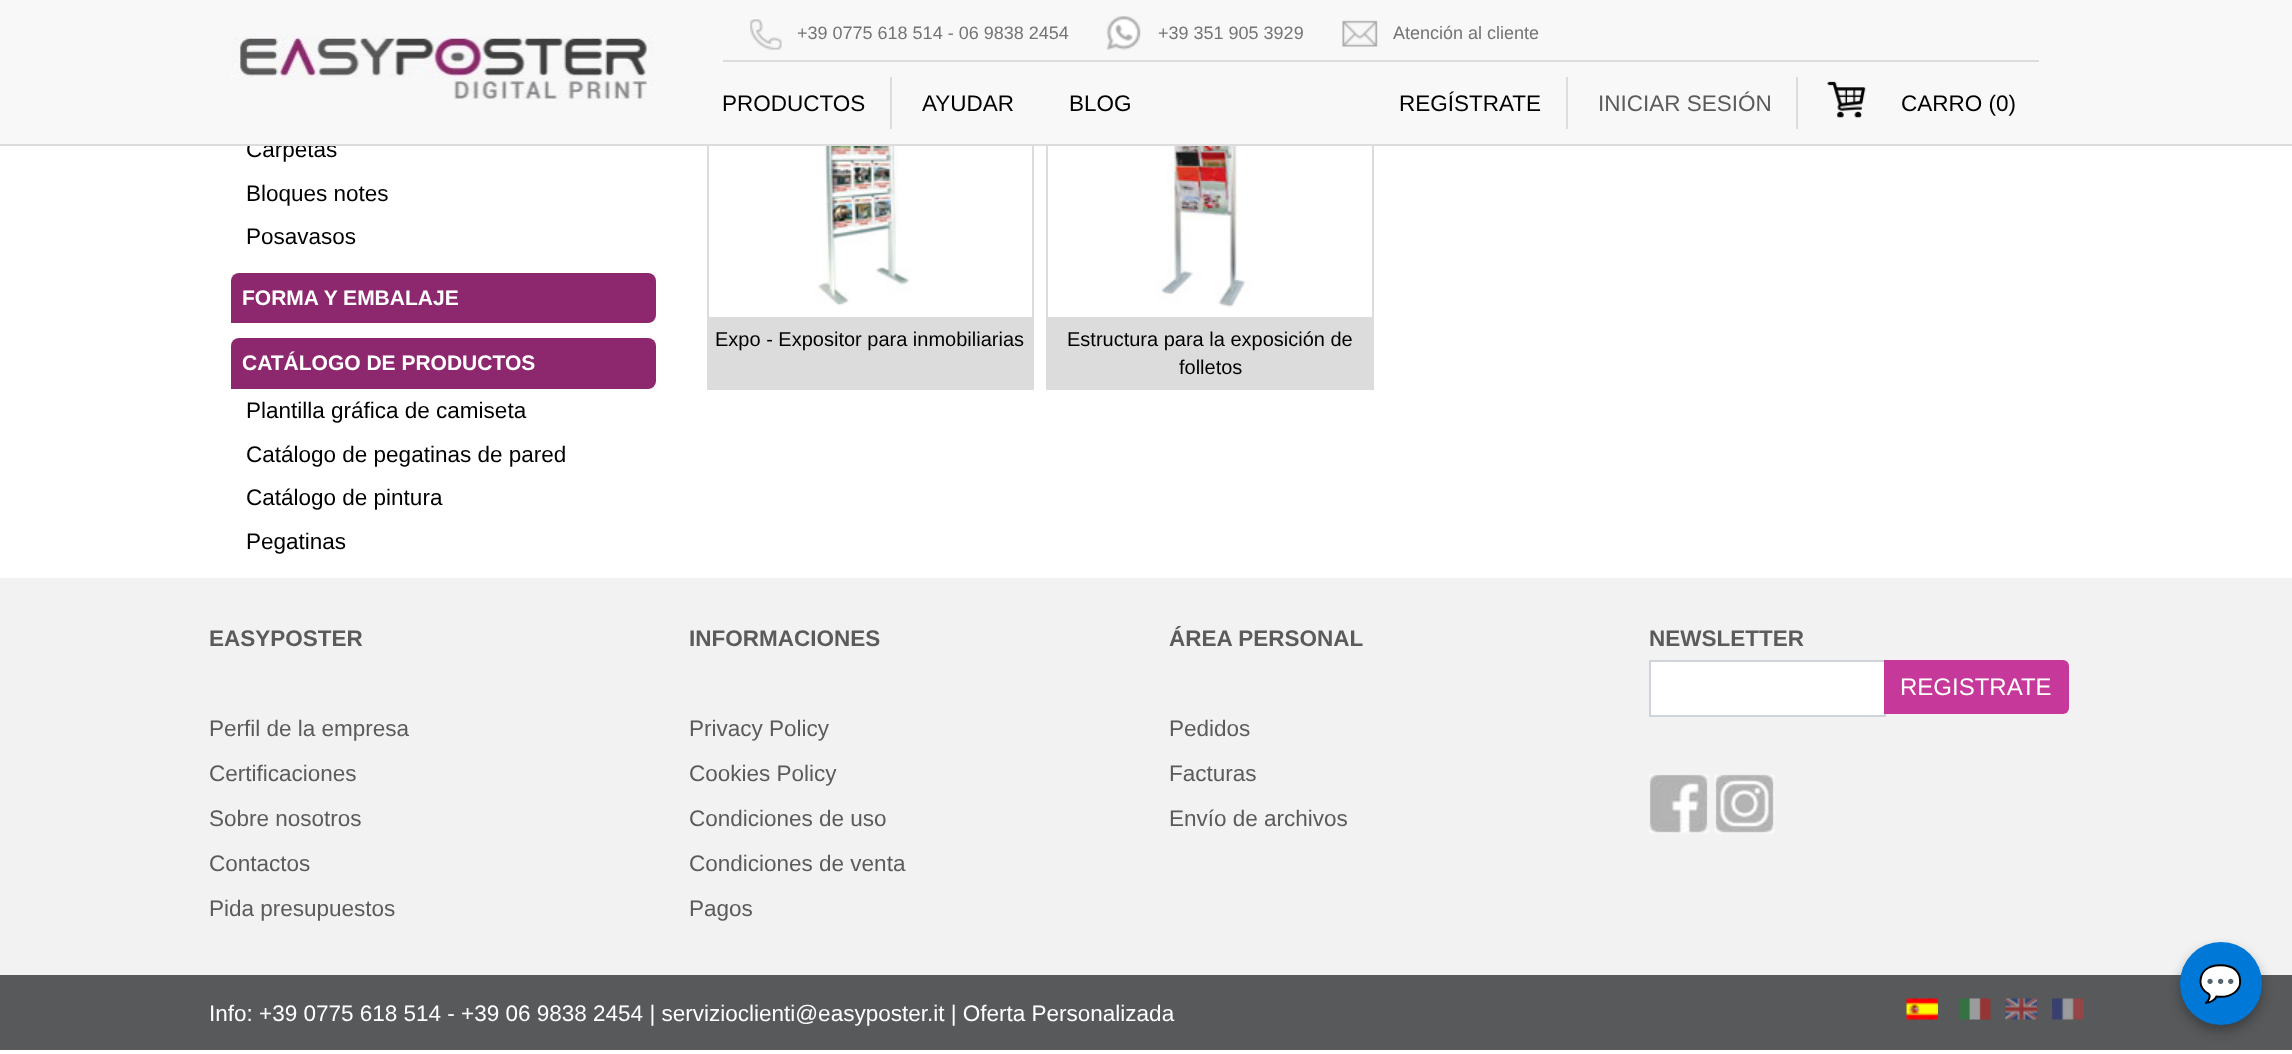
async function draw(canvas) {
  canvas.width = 2292
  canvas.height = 1054
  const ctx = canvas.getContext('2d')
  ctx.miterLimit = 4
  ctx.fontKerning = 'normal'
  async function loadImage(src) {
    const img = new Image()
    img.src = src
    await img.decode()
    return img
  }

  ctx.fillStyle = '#fff'
  ctx.fillRect(0, 0, 2292, 1054)
  ctx.font = '22.5px Liberation Sans'
  ctx.fillStyle = '#000'
  ctx.fillText('Carpetas', 246, 157)
  ctx.strokeStyle = '#dcdcdc'
  ctx.lineWidth = 2
  ctx.strokeRect(708, 69, 325, 320)
  ctx.strokeRect(1047, 69, 326, 320)
  ctx.fillStyle = '#f8f8f8'
  ctx.fillRect(0, 0, 2292, 144)
  ctx.fillStyle = '#dcdcdc'
  ctx.fillRect(0, 144, 2292, 2)
  ctx.drawImage(await loadImage('image0.png'), 231, 36, 422, 64)
  ctx.fillRect(723, 60, 1316, 2)
  ctx.drawImage(await loadImage('image1.png'), 750, 19, 32, 31)
  ctx.font = '18px Liberation Sans'
  ctx.fillStyle = '#747474'
  ctx.fillText('+39 0775 618 514 - 06 9838 2454', 797, 39)
  ctx.drawImage(await loadImage('image2.png'), 1106, 16, 35, 34)
  ctx.fillText('+39 351 905 3929', 1158, 39)
  ctx.drawImage(await loadImage('image3.png'), 1342, 20, 36, 27)
  ctx.fillText('Atención al cliente', 1393, 39)
  ctx.fillStyle = '#dcdcdc'
  ctx.fillRect(890, 77, 2, 52)
  ctx.font = '22.5px Liberation Sans'
  ctx.fillStyle = '#000'
  ctx.fillText('PRODUCTOS', 722, 111)
  ctx.fillText('AYUDAR', 922, 111)
  ctx.fillText('BLOG', 1069, 111)
  ctx.fillStyle = '#dcdcdc'
  ctx.fillRect(1566, 77, 2, 52)
  ctx.fillStyle = '#000'
  ctx.fillText('REGÍSTRATE', 1399, 111)
  ctx.fillStyle = '#dcdcdc'
  ctx.fillRect(1796, 77, 2, 52)
  ctx.fillStyle = '#5b5b5b'
  ctx.fillText('INICIAR SESIÓN', 1598, 111)
  ctx.drawImage(await loadImage('image4.png'), 1827, 81, 39, 37)
  ctx.fillStyle = '#000'
  ctx.fillText('CARRO (0)', 1901, 111)
  ctx.fillText('Bloques notes', 246, 201)
  ctx.fillText('Posavasos', 246, 244)
  ctx.fillStyle = '#8e286e'
  ctx.beginPath()
  ctx.roundRect(231, 273, 425, 50, [8, 8, 8, 0])
  ctx.fill()
  ctx.font = 'bold 21px Liberation Sans'
  ctx.fillStyle = '#fff'
  ctx.fillText('FORMA Y EMBALAJE', 242, 305)
  ctx.fillStyle = '#8e286e'
  ctx.beginPath()
  ctx.roundRect(231, 338, 425, 51, [8, 8, 8, 0])
  ctx.fill()
  ctx.fillStyle = '#fff'
  ctx.fillText('CATÁLOGO DE PRODUCTOS', 242, 370)
  ctx.font = '22.5px Liberation Sans'
  ctx.fillStyle = '#000'
  ctx.fillText('Plantilla gráfica de camiseta', 246, 418)
  ctx.fillText('Catálogo de pegatinas de pared', 246, 462)
  ctx.fillText('Catálogo de pintura', 246, 505)
  ctx.fillText('Pegatinas', 246, 549)
  ctx.drawImage(await loadImage('image5.png'), 815, 146, 95, 160)
  ctx.fillStyle = '#dcdcdc'
  ctx.fillRect(709, 317, 323, 71)
  ctx.font = '20px Liberation Sans'
  ctx.fillStyle = '#000'
  ctx.fillText('Expo - Expositor para inmobiliarias', 715, 346)
  ctx.drawImage(await loadImage('image6.png'), 1157, 146, 94, 162)
  ctx.fillStyle = '#dcdcdc'
  ctx.fillRect(1048, 317, 324, 71)
  ctx.fillStyle = '#000'
  ctx.fillText('Estructura para la exposición de', 1067, 346)
  ctx.fillText('folletos', 1179, 374)
  ctx.fillStyle = '#f2f2f2'
  ctx.fillRect(0, 578, 2292, 397)
  ctx.font = 'bold 22.5px Liberation Sans'
  ctx.fillStyle = '#5b5b5b'
  ctx.fillText('EASYPOSTER', 209, 646)
  ctx.font = '22.5px Liberation Sans'
  ctx.fillText('Perfil de la empresa', 209, 736)
  ctx.fillText('Certificaciones', 209, 781)
  ctx.fillText('Sobre nosotros', 209, 826)
  ctx.fillText('Contactos', 209, 871)
  ctx.fillText('Pida presupuestos', 209, 916)
  ctx.font = 'bold 22.5px Liberation Sans'
  ctx.fillText('INFORMACIONES', 689, 646)
  ctx.font = '22.5px Liberation Sans'
  ctx.fillText('Privacy Policy', 689, 736)
  ctx.fillText('Cookies Policy', 689, 781)
  ctx.fillText('Condiciones de uso', 689, 826)
  ctx.fillText('Condiciones de venta', 689, 871)
  ctx.fillText('Pagos', 689, 916)
  ctx.font = 'bold 22.5px Liberation Sans'
  ctx.fillText('ÁREA PERSONAL', 1169, 646)
  ctx.font = '22.5px Liberation Sans'
  ctx.fillText('Pedidos', 1169, 736)
  ctx.fillText('Facturas', 1169, 781)
  ctx.fillText('Envío de archivos', 1169, 826)
  ctx.font = 'bold 22.5px Liberation Sans'
  ctx.fillText('NEWSLETTER', 1649, 646)
  ctx.fillStyle = '#fff'
  ctx.beginPath()
  ctx.rect(1650, 661, 235, 55)
  ctx.fill()
  ctx.strokeStyle = '#ced4da'
  ctx.stroke()
  ctx.fillStyle = '#c63899'
  ctx.beginPath()
  ctx.roundRect(1884, 660, 185, 54, [0, 6, 6, 0])
  ctx.fill()
  ctx.font = '24px Liberation Sans'
  ctx.fillStyle = '#fff'
  ctx.fillText('REGISTRATE', 1900, 695)
  ctx.drawImage(await loadImage('image7.png'), 1649, 773, 60, 61)
  ctx.drawImage(await loadImage('image8.png'), 1714, 774, 61, 60)
  ctx.fillStyle = '#57595b'
  ctx.fillRect(0, 975, 2292, 75)
  ctx.font = '22.5px Liberation Sans'
  ctx.fillStyle = '#fff'
  ctx.fillText('Info: +39 0775 618 514 - +39 06 9838 2454 | servizioclienti@easyposter.it | Oferta Personalizada', 209, 1021)
  ctx.drawImage(await loadImage('image9.png'), 1906, 998, 32, 22)
  ctx.drawImage(await loadImage('image10.png'), 1959, 998, 32, 22)
  ctx.drawImage(await loadImage('image11.png'), 2005, 998, 32, 22)
  ctx.drawImage(await loadImage('image12.png'), 2052, 998, 32, 22)
  ctx.fillStyle = '#0000004d'
  ctx.filter = 'blur(6px)'
  ctx.beginPath()
  ctx.roundRect(2180, 948, 82, 83, 41)
  ctx.fill()
  ctx.filter = 'none'
  ctx.fillStyle = '#0078d7'
  ctx.beginPath()
  ctx.roundRect(2180, 942, 82, 83, 41)
  ctx.fill()
  ctx.font = '36px Noto Color Emoji'
  ctx.fillStyle = '#fff'
  ctx.fillText('💬', 2198, 996)
}

draw(document.querySelector('canvas'))
